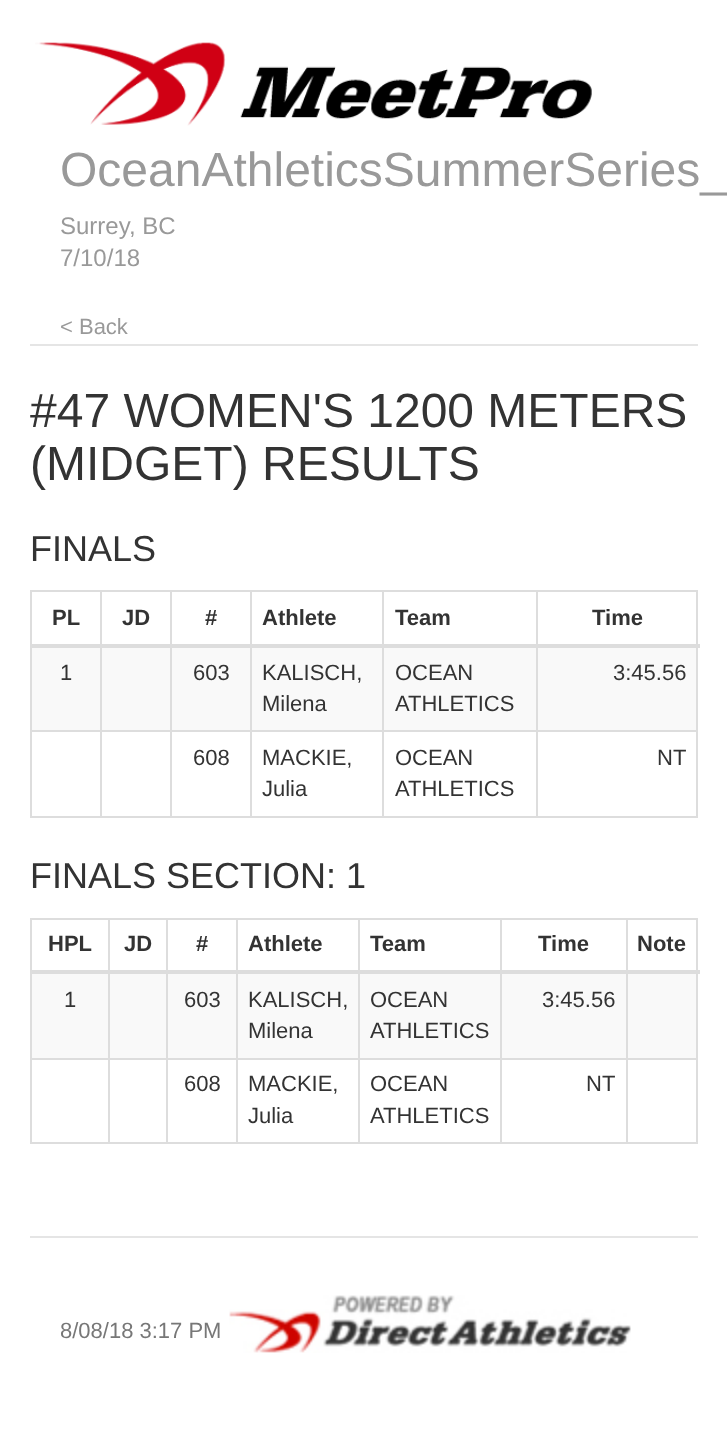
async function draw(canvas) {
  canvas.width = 727
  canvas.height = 1440
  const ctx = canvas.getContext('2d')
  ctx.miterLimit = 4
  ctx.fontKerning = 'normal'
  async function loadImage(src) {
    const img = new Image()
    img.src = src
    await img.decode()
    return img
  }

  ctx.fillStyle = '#fff'
  ctx.fillRect(0, 0, 727, 1440)
  ctx.fillStyle = '#e5e5e5'
  ctx.fillRect(30, 344, 668, 2)
  ctx.drawImage(await loadImage('image0.png'), 35, 42, 557, 84)
  ctx.font = '48px Liberation Sans'
  ctx.fillStyle = '#999'
  ctx.fillText('OceanAthleticsSummerSeries_', 60, 186)
  ctx.font = '24px Liberation Sans'
  ctx.fillText('Surrey, BC', 60, 234)
  ctx.fillText('7/10/18', 60, 266)
  ctx.font = '22px Liberation Sans'
  ctx.fillText('< Back', 60, 334)
  ctx.font = '48px Liberation Sans'
  ctx.fillStyle = '#333'
  ctx.fillText('#47 WOMEN\'S 1200 METERS', 30, 427)
  ctx.fillText('(MIDGET) RESULTS', 30, 480)
  ctx.font = '36px Liberation Sans'
  ctx.fillText('FINALS', 30, 561)
  ctx.fillStyle = '#ddd'
  ctx.fillRect(30, 590, 668, 2)
  ctx.fillRect(696, 590, 2, 228)
  ctx.fillRect(30, 816, 668, 2)
  ctx.fillRect(30, 590, 2, 228)
  ctx.font = 'bold 22px Liberation Sans'
  ctx.fillStyle = '#333'
  ctx.fillText('PL', 52, 625)
  ctx.fillText('JD', 122, 625)
  ctx.fillText('#', 205, 625)
  ctx.fillText('Athlete', 262, 625)
  ctx.fillText('Team', 395, 625)
  ctx.fillStyle = '#ddd'
  ctx.fillRect(536, 730, 162, 2)
  ctx.fillRect(536, 730, 2, 88)
  ctx.fillRect(382, 730, 156, 2)
  ctx.fillRect(382, 730, 2, 88)
  ctx.fillRect(250, 730, 134, 2)
  ctx.fillRect(250, 730, 2, 88)
  ctx.fillRect(170, 730, 82, 2)
  ctx.fillRect(170, 730, 2, 88)
  ctx.fillRect(100, 730, 72, 2)
  ctx.fillRect(100, 730, 2, 88)
  ctx.fillRect(30, 730, 72, 2)
  ctx.fillRect(100, 590, 2, 142)
  ctx.fillRect(170, 590, 2, 142)
  ctx.fillRect(250, 590, 2, 142)
  ctx.fillRect(382, 590, 2, 142)
  ctx.fillRect(536, 590, 2, 142)
  ctx.fillRect(30, 644, 670, 4)
  ctx.fillStyle = '#333'
  ctx.fillText('Time', 592, 625)
  ctx.fillStyle = '#f9f9f9'
  ctx.fillRect(32, 648, 68, 82)
  ctx.font = '22px Liberation Sans'
  ctx.fillStyle = '#333'
  ctx.fillText('1', 60, 680)
  ctx.fillStyle = '#f9f9f9'
  ctx.fillRect(102, 648, 68, 82)
  ctx.fillRect(172, 648, 78, 82)
  ctx.fillStyle = '#333'
  ctx.fillText('603', 193, 680)
  ctx.fillStyle = '#f9f9f9'
  ctx.fillRect(252, 648, 130, 82)
  ctx.fillStyle = '#333'
  ctx.fillText('KALISCH,', 262, 680)
  ctx.fillText('Milena', 262, 711)
  ctx.fillStyle = '#f9f9f9'
  ctx.fillRect(384, 648, 152, 82)
  ctx.fillStyle = '#333'
  ctx.fillText('OCEAN', 395, 680)
  ctx.fillText('ATHLETICS', 395, 711)
  ctx.fillStyle = '#f9f9f9'
  ctx.fillRect(538, 648, 158, 82)
  ctx.fillStyle = '#333'
  ctx.fillText('3:45.56', 613, 680)
  ctx.fillText('608', 193, 765)
  ctx.fillText('MACKIE,', 262, 765)
  ctx.fillText('Julia', 262, 796)
  ctx.fillText('OCEAN', 395, 765)
  ctx.fillText('ATHLETICS', 395, 796)
  ctx.fillText('NT', 657, 765)
  ctx.font = '36px Liberation Sans'
  ctx.fillText('FINALS SECTION: 1', 30, 888)
  ctx.fillStyle = '#ddd'
  ctx.fillRect(30, 918, 668, 2)
  ctx.fillRect(696, 918, 2, 226)
  ctx.fillRect(30, 1142, 668, 2)
  ctx.fillRect(30, 918, 2, 226)
  ctx.font = 'bold 22px Liberation Sans'
  ctx.fillStyle = '#333'
  ctx.fillText('HPL', 48, 951)
  ctx.fillText('JD', 124, 951)
  ctx.fillText('#', 196, 951)
  ctx.fillText('Athlete', 248, 951)
  ctx.fillText('Team', 370, 951)
  ctx.fillText('Time', 538, 951)
  ctx.fillStyle = '#ddd'
  ctx.fillRect(626, 1058, 72, 2)
  ctx.fillRect(626, 1058, 2, 86)
  ctx.fillRect(500, 1058, 128, 2)
  ctx.fillRect(500, 1058, 2, 86)
  ctx.fillRect(358, 1058, 144, 2)
  ctx.fillRect(358, 1058, 2, 86)
  ctx.fillRect(236, 1058, 124, 2)
  ctx.fillRect(236, 1058, 2, 86)
  ctx.fillRect(166, 1058, 72, 2)
  ctx.fillRect(166, 1058, 2, 86)
  ctx.fillRect(108, 1058, 60, 2)
  ctx.fillRect(108, 1058, 2, 86)
  ctx.fillRect(30, 1058, 80, 2)
  ctx.fillRect(108, 918, 2, 142)
  ctx.fillRect(166, 918, 2, 142)
  ctx.fillRect(236, 918, 2, 142)
  ctx.fillRect(358, 918, 2, 142)
  ctx.fillRect(500, 918, 2, 142)
  ctx.fillRect(626, 918, 2, 142)
  ctx.fillRect(30, 970, 670, 4)
  ctx.fillStyle = '#333'
  ctx.fillText('Note', 637, 951)
  ctx.fillStyle = '#f9f9f9'
  ctx.fillRect(32, 974, 76, 84)
  ctx.font = '22px Liberation Sans'
  ctx.fillStyle = '#333'
  ctx.fillText('1', 64, 1007)
  ctx.fillStyle = '#f9f9f9'
  ctx.fillRect(110, 974, 56, 84)
  ctx.fillRect(168, 974, 68, 84)
  ctx.fillStyle = '#333'
  ctx.fillText('603', 184, 1007)
  ctx.fillStyle = '#f9f9f9'
  ctx.fillRect(238, 974, 120, 84)
  ctx.fillStyle = '#333'
  ctx.fillText('KALISCH,', 248, 1007)
  ctx.fillText('Milena', 248, 1038)
  ctx.fillStyle = '#f9f9f9'
  ctx.fillRect(360, 974, 140, 84)
  ctx.fillStyle = '#333'
  ctx.fillText('OCEAN', 370, 1007)
  ctx.fillText('ATHLETICS', 370, 1038)
  ctx.fillStyle = '#f9f9f9'
  ctx.fillRect(502, 974, 124, 84)
  ctx.fillStyle = '#333'
  ctx.fillText('3:45.56', 542, 1007)
  ctx.fillStyle = '#f9f9f9'
  ctx.fillRect(628, 974, 68, 84)
  ctx.fillStyle = '#333'
  ctx.fillText('608', 184, 1091)
  ctx.fillText('MACKIE,', 248, 1091)
  ctx.fillText('Julia', 248, 1123)
  ctx.fillText('OCEAN', 370, 1091)
  ctx.fillText('ATHLETICS', 370, 1123)
  ctx.fillText('NT', 586, 1091)
  ctx.fillStyle = '#e5e5e5'
  ctx.fillRect(30, 1236, 668, 2)
  ctx.fillStyle = '#777'
  ctx.fillText('8/08/18 3:17 PM', 60, 1338)
  ctx.drawImage(await loadImage('image1.png'), 229, 1295, 402, 58)
}

draw(document.querySelector('canvas'))
